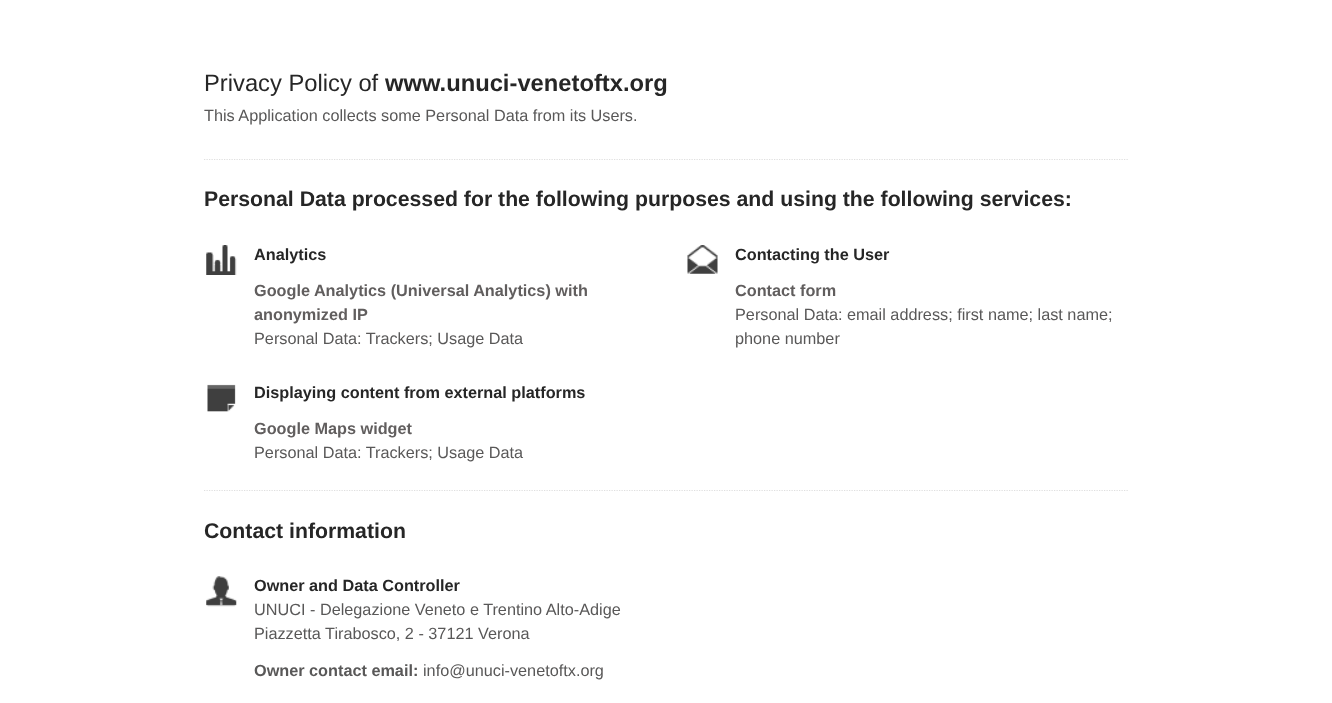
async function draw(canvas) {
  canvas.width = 1332
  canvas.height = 703
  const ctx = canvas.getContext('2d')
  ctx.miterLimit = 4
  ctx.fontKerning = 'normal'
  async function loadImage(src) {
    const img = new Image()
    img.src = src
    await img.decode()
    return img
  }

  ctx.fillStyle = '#fff'
  ctx.fillRect(0, 0, 1332, 703)
  ctx.beginPath()
  ctx.moveTo(204, 159.5)
  ctx.lineTo(1129, 159.5)
  ctx.strokeStyle = '#dfdfdf'
  ctx.lineWidth = 1.2
  ctx.setLineDash([1.25, 1.25])
  ctx.stroke()
  ctx.font = '23.75px Liberation Sans'
  ctx.fillStyle = '#262626'
  ctx.fillText('Privacy Policy of', 204, 91)
  ctx.font = 'bold 23.75px Liberation Sans'
  ctx.fillText('www.unuci-venetoftx.org', 385, 91)
  ctx.font = '16.25px Liberation Sans'
  ctx.fillStyle = '#595858'
  ctx.fillText('This Application collects some Personal Data from its Users.', 204, 121)
  ctx.font = 'bold 21.25px Liberation Sans'
  ctx.fillStyle = '#262626'
  ctx.fillText('Personal Data processed for the following purposes and using the following services:', 204, 206)
  ctx.beginPath()
  ctx.moveTo(204, 490.5)
  ctx.lineTo(1129, 490.5)
  ctx.stroke()
  ctx.drawImage(await loadImage('image0.png'), 206, 245, 31, 30)
  ctx.font = 'bold 16.25px Liberation Sans'
  ctx.fillText('Analytics', 254, 260)
  ctx.fillStyle = '#615e5e'
  ctx.fillText('Google Analytics (Universal Analytics) with', 254, 296)
  ctx.fillText('anonymized IP', 254, 320)
  ctx.font = '16.25px Liberation Sans'
  ctx.fillStyle = '#595858'
  ctx.fillText('Personal Data: Trackers; Usage Data', 254, 344)
  ctx.drawImage(await loadImage('image1.png'), 687, 245, 31, 29)
  ctx.font = 'bold 16.25px Liberation Sans'
  ctx.fillStyle = '#262626'
  ctx.fillText('Contacting the User', 735, 260)
  ctx.fillStyle = '#615e5e'
  ctx.fillText('Contact form', 735, 296)
  ctx.font = '16.25px Liberation Sans'
  ctx.fillStyle = '#595858'
  ctx.fillText('Personal Data: email address; first name; last name;', 735, 320)
  ctx.fillText('phone number', 735, 344)
  ctx.drawImage(await loadImage('image2.png'), 207, 384, 29, 28)
  ctx.font = 'bold 16.25px Liberation Sans'
  ctx.fillStyle = '#262626'
  ctx.fillText('Displaying content from external platforms', 254, 398)
  ctx.fillStyle = '#615e5e'
  ctx.fillText('Google Maps widget', 254, 434)
  ctx.font = '16.25px Liberation Sans'
  ctx.fillStyle = '#595858'
  ctx.fillText('Personal Data: Trackers; Usage Data', 254, 458)
  ctx.font = 'bold 21.25px Liberation Sans'
  ctx.fillStyle = '#262626'
  ctx.fillText('Contact information', 204, 538)
  ctx.drawImage(await loadImage('image3.png'), 206, 576, 31, 31)
  ctx.font = 'bold 16.25px Liberation Sans'
  ctx.fillText('Owner and Data Controller', 254, 591)
  ctx.font = '16.25px Liberation Sans'
  ctx.fillStyle = '#595858'
  ctx.fillText('UNUCI - Delegazione Veneto e Trentino Alto-Adige', 254, 615)
  ctx.fillText('Piazzetta Tirabosco, 2 - 37121 Verona', 254, 639)
  ctx.font = 'bold 16.25px Liberation Sans'
  ctx.fillText('Owner contact email:', 254, 676)
  ctx.font = '16.25px Liberation Sans'
  ctx.fillText('info@unuci-venetoftx.org', 423, 676)
}

draw(document.querySelector('canvas'))
